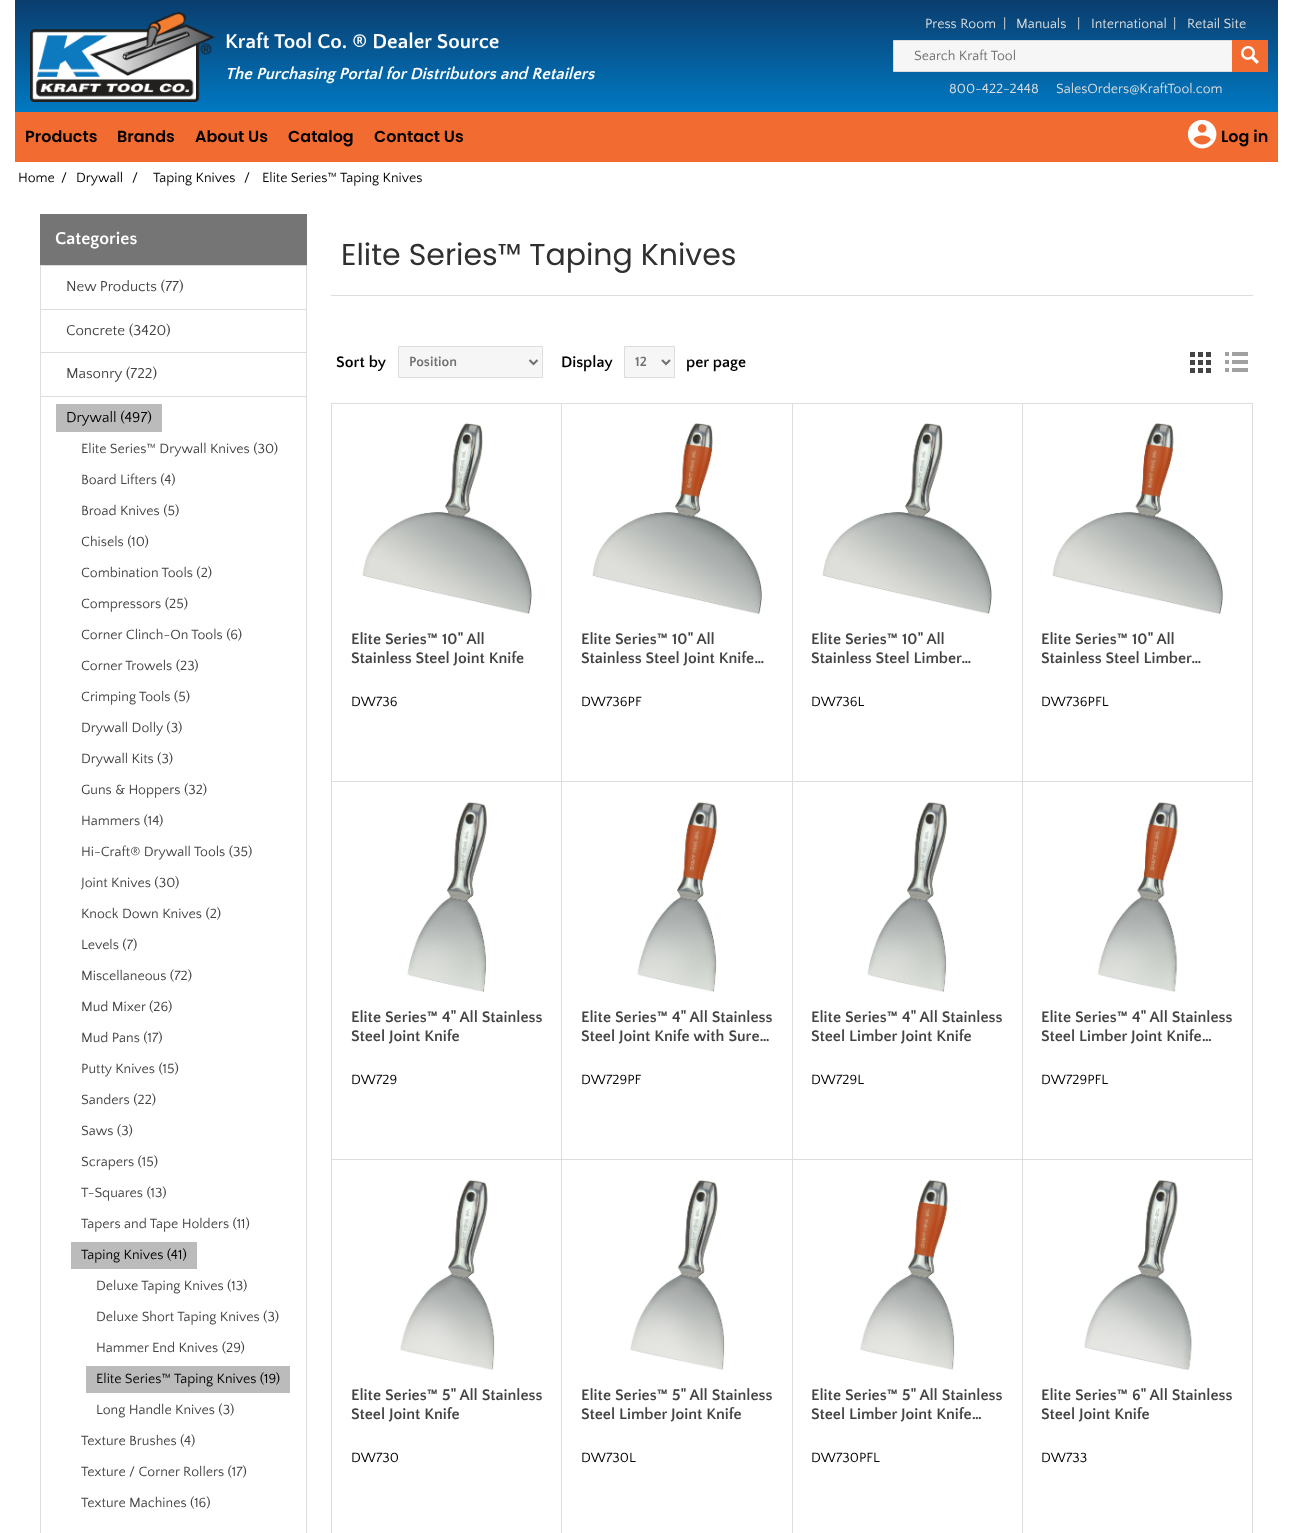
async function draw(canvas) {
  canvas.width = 1293
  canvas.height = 1533
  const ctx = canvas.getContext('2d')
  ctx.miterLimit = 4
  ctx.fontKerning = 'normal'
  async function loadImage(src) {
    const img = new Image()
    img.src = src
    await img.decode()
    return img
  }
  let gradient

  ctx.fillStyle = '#fff'
  ctx.fillRect(0, 0, 1293, 1533)
  gradient = ctx.createLinearGradient(647, 0, 647, 112)
  gradient.addColorStop(0, '#0a3d6e')
  gradient.addColorStop(1, '#0079c2')
  ctx.fillStyle = gradient
  ctx.fillRect(15, 0, 1263, 112)
  ctx.drawImage(await loadImage('image0.png'), 30, 12, 185, 90)
  ctx.font = 'bold 21px Quattrocento Sans'
  ctx.fillStyle = '#fff'
  ctx.fillText('Kraft Tool Co. ® Dealer Source', 225, 48)
  ctx.font = 'italic bold 16.8px Quattrocento Sans'
  ctx.fillText('The Purchasing Portal for Distributors and Retailers', 225, 79)
  ctx.font = '14px Quattrocento Sans'
  ctx.fillStyle = '#ddd'
  ctx.fillText('Press Room', 925, 28)
  ctx.fillText('|', 1003, 28)
  ctx.fillText('Manuals', 1016, 28)
  ctx.fillText('|', 1077, 28)
  ctx.fillText('International', 1091, 28)
  ctx.fillText('|', 1173, 28)
  ctx.fillText('Retail Site', 1187, 28)
  ctx.fillStyle = '#f6f6f6'
  ctx.beginPath()
  ctx.rect(893.5, 40.5, 339, 31)
  ctx.fill()
  ctx.strokeStyle = '#ddd'
  ctx.stroke()
  ctx.fillStyle = '#707070'
  ctx.fillText('Search Kraft Tool', 914, 60)
  ctx.fillStyle = '#f26b31'
  ctx.fillRect(1232, 40, 36, 32)
  ctx.drawImage(await loadImage('image1.png'), 1241, 46, 18, 18)
  ctx.fillStyle = '#ddd'
  ctx.fillText('800-422-2448', 949, 93)
  ctx.fillText('SalesOrders@KraftTool.com', 1056, 93)
  ctx.fillStyle = '#f26b31'
  ctx.fillRect(15, 112, 1263, 50)
  ctx.font = '600 16px Poppins'
  ctx.fillStyle = '#000'
  ctx.fillText('Products', 25, 142)
  ctx.fillText('Brands', 117, 142)
  ctx.fillText('About Us', 195, 142)
  ctx.fillText('Catalog', 288, 142)
  ctx.fillText('Contact Us', 374, 142)
  ctx.drawImage(await loadImage('image2.png'), 1187, 119, 30, 30)
  ctx.fillText('Log in', 1221, 142)
  ctx.font = '14px Quattrocento Sans'
  ctx.fillText('Home', 18, 182)
  ctx.fillText('/', 61, 182)
  ctx.fillText('Drywall', 76, 182)
  ctx.fillText('/', 132, 182)
  ctx.fillText('Taping Knives', 153, 182)
  ctx.fillText('/', 244, 182)
  ctx.fillText('Elite Series™ Taping Knives', 262, 182)
  ctx.fillStyle = '#757575'
  ctx.fillRect(40, 214, 267, 51)
  ctx.fillStyle = '#ddd'
  ctx.fillRect(40, 265, 267, 1)
  ctx.font = 'bold 18px Quattrocento Sans'
  ctx.fillStyle = '#fff'
  ctx.fillText('Categories', 55, 244)
  ctx.fillStyle = '#ddd'
  ctx.fillRect(306, 266, 1, 1267)
  ctx.fillRect(40, 266, 1, 1267)
  ctx.fillRect(41, 309, 265, 1)
  ctx.font = '15px Quattrocento Sans'
  ctx.fillStyle = '#444'
  ctx.fillText('New Products (77)', 66, 291)
  ctx.fillStyle = '#ddd'
  ctx.fillRect(41, 352, 265, 1)
  ctx.fillStyle = '#444'
  ctx.fillText('Concrete (3420)', 66, 335)
  ctx.fillStyle = '#ddd'
  ctx.fillRect(41, 396, 265, 1)
  ctx.fillStyle = '#444'
  ctx.fillText('Masonry (722)', 66, 378)
  ctx.fillStyle = '#bbb'
  ctx.fillRect(56, 404, 106, 28)
  ctx.fillStyle = '#000'
  ctx.fillText('Drywall (497)', 66, 422)
  ctx.font = '14px Quattrocento Sans'
  ctx.fillStyle = '#444'
  ctx.fillText('Elite Series™ Drywall Knives (30)', 81, 453)
  ctx.fillText('Board Lifters (4)', 81, 484)
  ctx.fillText('Broad Knives (5)', 81, 515)
  ctx.fillText('Chisels (10)', 81, 546)
  ctx.fillText('Combination Tools (2)', 81, 577)
  ctx.fillText('Compressors (25)', 81, 608)
  ctx.fillText('Corner Clinch-On Tools (6)', 81, 639)
  ctx.fillText('Corner Trowels (23)', 81, 670)
  ctx.fillText('Crimping Tools (5)', 81, 701)
  ctx.fillText('Drywall Dolly (3)', 81, 732)
  ctx.fillText('Drywall Kits (3)', 81, 763)
  ctx.fillText('Guns & Hoppers (32)', 81, 794)
  ctx.fillText('Hammers (14)', 81, 825)
  ctx.fillText('Hi-Craft® Drywall Tools (35)', 81, 856)
  ctx.fillText('Joint Knives (30)', 81, 887)
  ctx.fillText('Knock Down Knives (2)', 81, 918)
  ctx.fillText('Levels (7)', 81, 949)
  ctx.fillText('Miscellaneous (72)', 81, 980)
  ctx.fillText('Mud Mixer (26)', 81, 1011)
  ctx.fillText('Mud Pans (17)', 81, 1042)
  ctx.fillText('Putty Knives (15)', 81, 1073)
  ctx.fillText('Sanders (22)', 81, 1104)
  ctx.fillText('Saws (3)', 81, 1135)
  ctx.fillText('Scrapers (15)', 81, 1166)
  ctx.fillText('T-Squares (13)', 81, 1197)
  ctx.fillText('Tapers and Tape Holders (11)', 81, 1228)
  ctx.fillStyle = '#bbb'
  ctx.fillRect(71, 1242, 126, 27)
  ctx.fillStyle = '#000'
  ctx.fillText('Taping Knives (41)', 81, 1259)
  ctx.fillStyle = '#444'
  ctx.fillText('Deluxe Taping Knives (13)', 96, 1290)
  ctx.fillText('Deluxe Short Taping Knives (3)', 96, 1321)
  ctx.fillText('Hammer End Knives (29)', 96, 1352)
  ctx.fillStyle = '#bbb'
  ctx.fillRect(86, 1366, 204, 27)
  ctx.fillStyle = '#000'
  ctx.fillText('Elite Series™ Taping Knives (19)', 96, 1383)
  ctx.fillStyle = '#444'
  ctx.fillText('Long Handle Knives (3)', 96, 1414)
  ctx.fillText('Texture Brushes (4)', 81, 1445)
  ctx.fillText('Texture / Corner Rollers (17)', 81, 1476)
  ctx.fillText('Texture Machines (16)', 81, 1507)
  ctx.fillStyle = '#ddd'
  ctx.fillRect(331, 295, 922, 1)
  ctx.font = '30px Poppins'
  ctx.fillStyle = '#303030'
  ctx.fillText('Elite Series™ Taping Knives', 341, 265)
  ctx.font = 'bold 16px Quattrocento Sans'
  ctx.fillStyle = '#000'
  ctx.fillText('Sort by', 336, 367)
  ctx.fillStyle = '#f6f6f6'
  ctx.beginPath()
  ctx.rect(398.5, 346.5, 144, 31)
  ctx.fill()
  ctx.stroke()
  ctx.beginPath()
  ctx.moveTo(529.5, 360)
  ctx.lineTo(533.5, 364)
  ctx.lineTo(537.5, 360)
  ctx.strokeStyle = '#707070'
  ctx.lineWidth = 2
  ctx.stroke()
  ctx.font = 'bold 14px Quattrocento Sans'
  ctx.fillStyle = '#707070'
  ctx.fillText('Position', 409, 366)
  ctx.font = 'bold 16px Quattrocento Sans'
  ctx.fillStyle = '#000'
  ctx.fillText('Display', 561, 367)
  ctx.fillStyle = '#f6f6f6'
  ctx.beginPath()
  ctx.rect(624.5, 346.5, 50, 31)
  ctx.fill()
  ctx.strokeStyle = '#ddd'
  ctx.lineWidth = 1
  ctx.stroke()
  ctx.beginPath()
  ctx.moveTo(662, 360)
  ctx.lineTo(666, 364)
  ctx.lineTo(670, 360)
  ctx.strokeStyle = '#707070'
  ctx.lineWidth = 2
  ctx.stroke()
  ctx.font = 'bold 14px Quattrocento Sans'
  ctx.fillStyle = '#707070'
  ctx.fillText('12', 635, 366)
  ctx.font = 'bold 16px Quattrocento Sans'
  ctx.fillStyle = '#000'
  ctx.fillText('per page', 686, 367)
  ctx.drawImage(await loadImage('image3.png'), 1190, 352, 21, 21)
  ctx.drawImage(await loadImage('image4.png'), 1225, 352, 23, 20)
  ctx.fillStyle = '#ddd'
  ctx.fillRect(331, 403, 922, 1)
  ctx.fillRect(331, 403, 1, 1130)
  ctx.fillRect(561, 404, 1, 1129)
  ctx.fillRect(332, 781, 230, 1)
  ctx.drawImage(await loadImage('image5.png'), 362, 423, 170, 191)
  ctx.fillStyle = '#444'
  ctx.fillText('Elite Series™ 10" All', 351, 644)
  ctx.fillText('Stainless Steel Joint Knife', 351, 663)
  ctx.font = '14px Quattrocento Sans'
  ctx.fillStyle = '#000'
  ctx.fillText('DW736', 351, 706)
  ctx.fillStyle = '#ddd'
  ctx.fillRect(792, 404, 1, 1129)
  ctx.fillRect(562, 781, 231, 1)
  ctx.drawImage(await loadImage('image6.png'), 592, 423, 170, 191)
  ctx.font = 'bold 16px Quattrocento Sans'
  ctx.fillStyle = '#444'
  ctx.fillText('Elite Series™ 10" All', 581, 644)
  ctx.fillText('Stainless Steel Joint Knife…', 581, 663)
  ctx.font = '14px Quattrocento Sans'
  ctx.fillStyle = '#000'
  ctx.fillText('DW736PF', 581, 706)
  ctx.fillStyle = '#ddd'
  ctx.fillRect(1022, 404, 1, 1129)
  ctx.fillRect(793, 781, 230, 1)
  ctx.drawImage(await loadImage('image5.png'), 822, 423, 170, 191)
  ctx.font = 'bold 16px Quattrocento Sans'
  ctx.fillStyle = '#444'
  ctx.fillText('Elite Series™ 10" All', 811, 644)
  ctx.fillText('Stainless Steel Limber…', 811, 663)
  ctx.font = '14px Quattrocento Sans'
  ctx.fillStyle = '#000'
  ctx.fillText('DW736L', 811, 706)
  ctx.fillStyle = '#ddd'
  ctx.fillRect(1252, 404, 1, 1129)
  ctx.fillRect(1023, 781, 230, 1)
  ctx.drawImage(await loadImage('image7.png'), 1052, 423, 171, 191)
  ctx.font = 'bold 16px Quattrocento Sans'
  ctx.fillStyle = '#444'
  ctx.fillText('Elite Series™ 10" All', 1041, 644)
  ctx.fillText('Stainless Steel Limber…', 1041, 663)
  ctx.font = '14px Quattrocento Sans'
  ctx.fillStyle = '#000'
  ctx.fillText('DW736PFL', 1041, 706)
  ctx.fillStyle = '#ddd'
  ctx.fillRect(332, 1159, 921, 1)
  ctx.drawImage(await loadImage('image8.png'), 407, 802, 80, 190)
  ctx.font = 'bold 16px Quattrocento Sans'
  ctx.fillStyle = '#444'
  ctx.fillText('Elite Series™ 4" All Stainless', 351, 1022)
  ctx.fillText('Steel Joint Knife', 351, 1041)
  ctx.font = '14px Quattrocento Sans'
  ctx.fillStyle = '#000'
  ctx.fillText('DW729', 351, 1084)
  ctx.drawImage(await loadImage('image9.png'), 637, 802, 80, 190)
  ctx.font = 'bold 16px Quattrocento Sans'
  ctx.fillStyle = '#444'
  ctx.fillText('Elite Series™ 4" All Stainless', 581, 1022)
  ctx.fillText('Steel Joint Knife with Sure…', 581, 1041)
  ctx.font = '14px Quattrocento Sans'
  ctx.fillStyle = '#000'
  ctx.fillText('DW729PF', 581, 1084)
  ctx.drawImage(await loadImage('image8.png'), 867, 802, 80, 190)
  ctx.font = 'bold 16px Quattrocento Sans'
  ctx.fillStyle = '#444'
  ctx.fillText('Elite Series™ 4" All Stainless', 811, 1022)
  ctx.fillText('Steel Limber Joint Knife', 811, 1041)
  ctx.font = '14px Quattrocento Sans'
  ctx.fillStyle = '#000'
  ctx.fillText('DW729L', 811, 1084)
  ctx.drawImage(await loadImage('image10.png'), 1097, 802, 81, 190)
  ctx.font = 'bold 16px Quattrocento Sans'
  ctx.fillStyle = '#444'
  ctx.fillText('Elite Series™ 4" All Stainless', 1041, 1022)
  ctx.fillText('Steel Limber Joint Knife…', 1041, 1041)
  ctx.font = '14px Quattrocento Sans'
  ctx.fillStyle = '#000'
  ctx.fillText('DW729PFL', 1041, 1084)
  ctx.drawImage(await loadImage('image11.png'), 400, 1180, 95, 190)
  ctx.font = 'bold 16px Quattrocento Sans'
  ctx.fillStyle = '#444'
  ctx.fillText('Elite Series™ 5" All Stainless', 351, 1400)
  ctx.fillText('Steel Joint Knife', 351, 1419)
  ctx.font = '14px Quattrocento Sans'
  ctx.fillStyle = '#000'
  ctx.fillText('DW730', 351, 1462)
  ctx.drawImage(await loadImage('image12.png'), 630, 1180, 95, 190)
  ctx.font = 'bold 16px Quattrocento Sans'
  ctx.fillStyle = '#444'
  ctx.fillText('Elite Series™ 5" All Stainless', 581, 1400)
  ctx.fillText('Steel Limber Joint Knife', 581, 1419)
  ctx.font = '14px Quattrocento Sans'
  ctx.fillStyle = '#000'
  ctx.fillText('DW730L', 581, 1462)
  ctx.drawImage(await loadImage('image13.png'), 860, 1180, 95, 190)
  ctx.font = 'bold 16px Quattrocento Sans'
  ctx.fillStyle = '#444'
  ctx.fillText('Elite Series™ 5" All Stainless', 811, 1400)
  ctx.fillText('Steel Limber Joint Knife…', 811, 1419)
  ctx.font = '14px Quattrocento Sans'
  ctx.fillStyle = '#000'
  ctx.fillText('DW730PFL', 811, 1462)
  ctx.drawImage(await loadImage('image14.png'), 1084, 1180, 108, 190)
  ctx.font = 'bold 16px Quattrocento Sans'
  ctx.fillStyle = '#444'
  ctx.fillText('Elite Series™ 6" All Stainless', 1041, 1400)
  ctx.fillText('Steel Joint Knife', 1041, 1419)
  ctx.font = '14px Quattrocento Sans'
  ctx.fillStyle = '#000'
  ctx.fillText('DW733', 1041, 1462)
}

draw(document.querySelector('canvas'))
